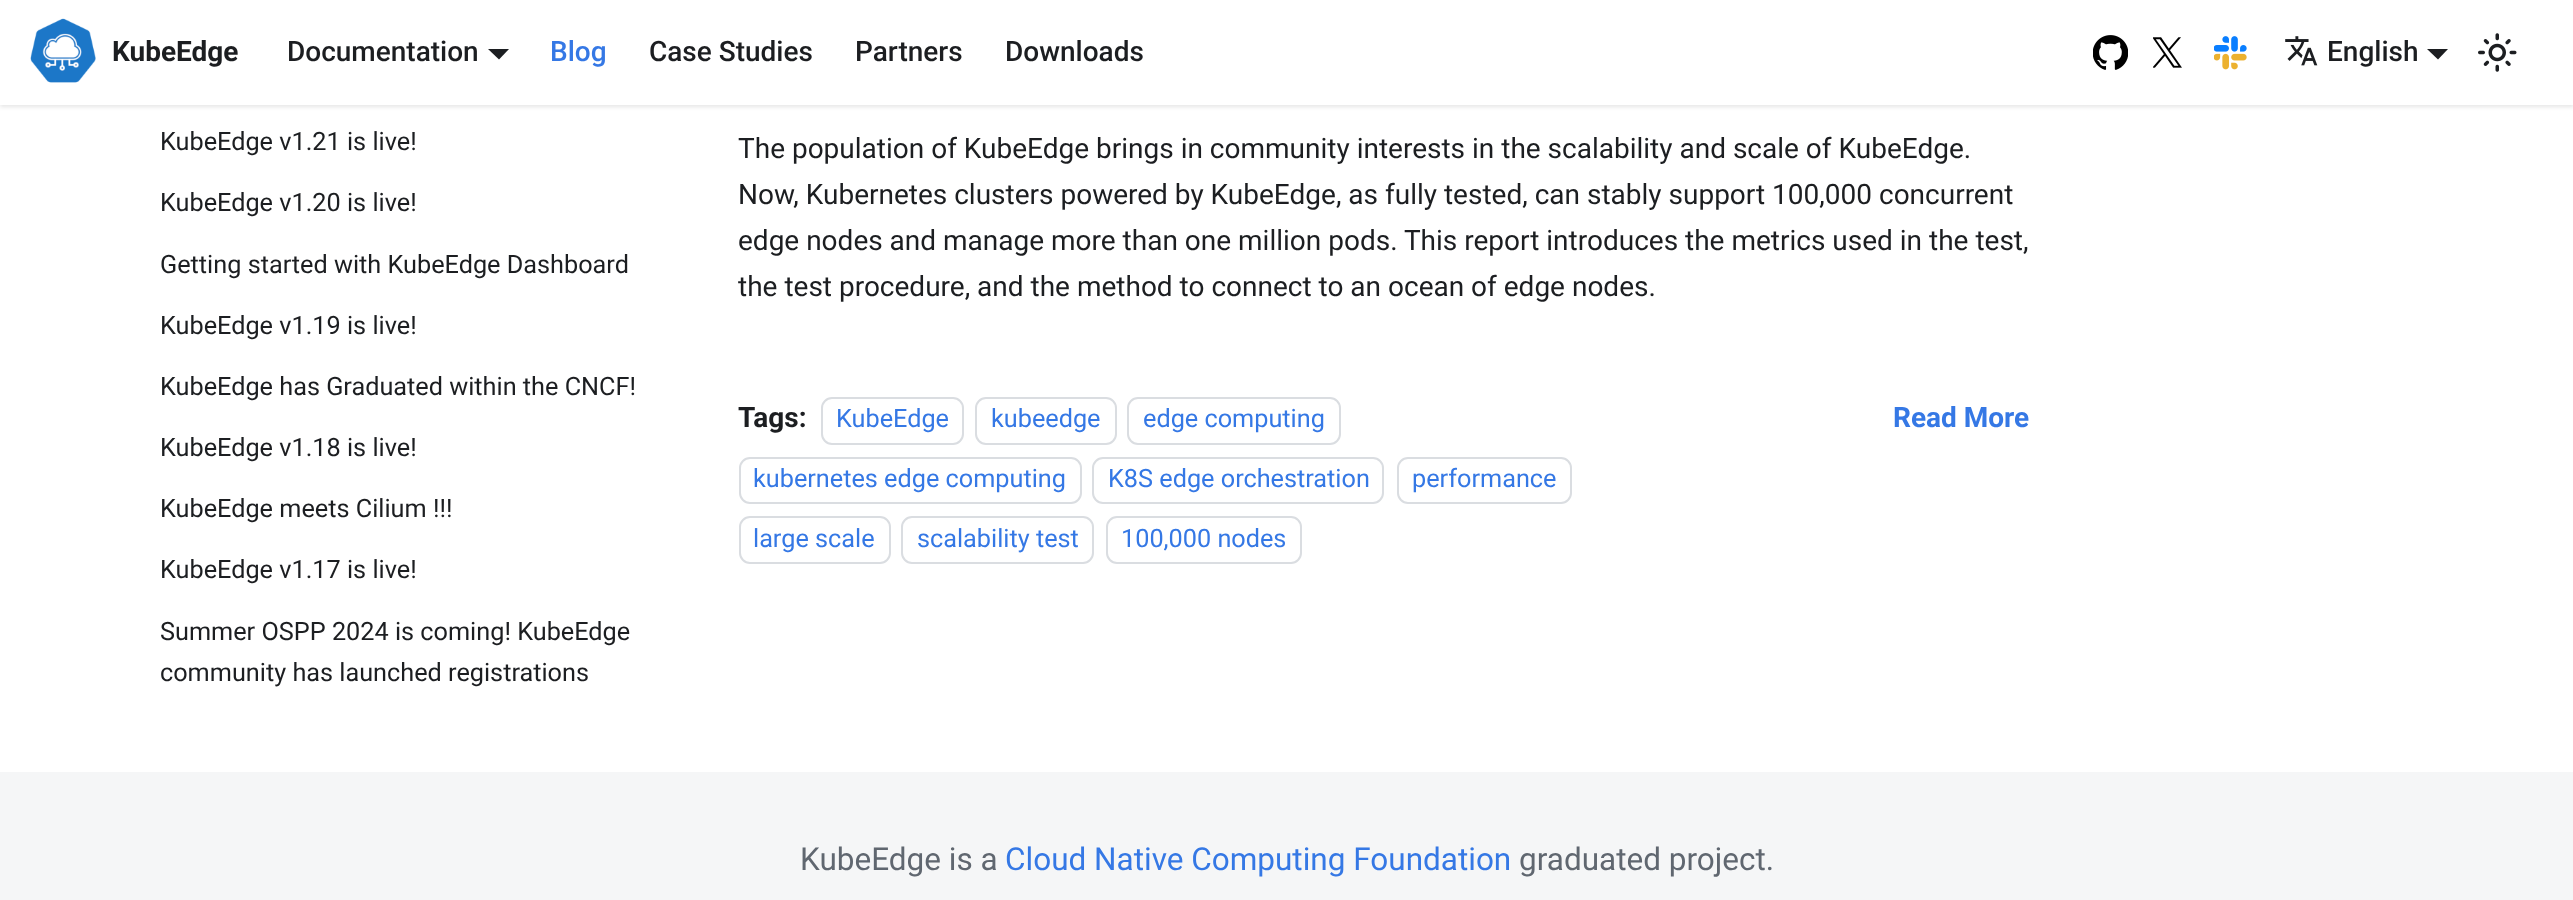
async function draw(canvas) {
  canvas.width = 2573
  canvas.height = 900
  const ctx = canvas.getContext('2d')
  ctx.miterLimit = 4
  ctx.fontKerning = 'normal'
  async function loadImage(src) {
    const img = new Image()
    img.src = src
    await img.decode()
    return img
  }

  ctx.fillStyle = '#fff'
  ctx.fillRect(0, 0, 2573, 900)
  ctx.fillStyle = '#0000001a'
  ctx.filter = 'blur(2px)'
  ctx.beginPath()
  ctx.rect(0, 2, 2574, 105)
  ctx.fill()
  ctx.filter = 'none'
  ctx.fillStyle = '#fff'
  ctx.fillRect(0, 0, 2573, 105)
  ctx.drawImage(await loadImage('image0.png'), 30, 18, 66, 65)
  ctx.font = 'bold 28px Roboto'
  ctx.fillStyle = '#1c1e21'
  ctx.fillText('KubeEdge', 112, 61)
  ctx.font = '500 28px Roboto'
  ctx.fillText('Documentation', 287, 61)
  ctx.beginPath()
  ctx.moveTo(488, 49)
  ctx.lineTo(509, 49)
  ctx.lineTo(499, 59.5)
  ctx.closePath()
  ctx.fill()
  ctx.fillStyle = '#3578e5'
  ctx.fillText('Blog', 550, 61)
  ctx.fillStyle = '#1c1e21'
  ctx.fillText('Case Studies', 649, 61)
  ctx.fillText('Partners', 855, 61)
  ctx.fillText('Downloads', 1005, 61)
  ctx.drawImage(await loadImage('image1.png'), 2093, 35, 35, 35)
  ctx.drawImage(await loadImage('image2.png'), 2153, 37, 29, 31)
  ctx.drawImage(await loadImage('image3.png'), 2214, 36, 33, 34)
  ctx.drawImage(await loadImage('image4.png'), 2285, 36, 33, 30)
  ctx.fillText('English', 2327, 61)
  ctx.beginPath()
  ctx.moveTo(2427, 49)
  ctx.lineTo(2448, 49)
  ctx.lineTo(2438, 59.5)
  ctx.closePath()
  ctx.fill()
  ctx.drawImage(await loadImage('image5.png'), 2478, 33, 39, 39)
  ctx.font = '25.25px Roboto'
  ctx.fillText('KubeEdge v1.21 is live!', 160, 150)
  ctx.fillText('KubeEdge v1.20 is live!', 160, 211)
  ctx.fillText('Getting started with KubeEdge Dashboard', 160, 273)
  ctx.fillText('KubeEdge v1.19 is live!', 160, 334)
  ctx.fillText('KubeEdge has Graduated within the CNCF!', 160, 395)
  ctx.fillText('KubeEdge v1.18 is live!', 160, 456)
  ctx.fillText('KubeEdge meets Cilium !!!', 160, 517)
  ctx.fillText('KubeEdge v1.17 is live!', 160, 578)
  ctx.fillText('Summer OSPP 2024 is coming! KubeEdge', 160, 640)
  ctx.fillText('community has launched registrations', 160, 681)
  ctx.font = '28px Roboto'
  ctx.fillText('The population of KubeEdge brings in community interests in the scalability and scale of KubeEdge.', 738, 158)
  ctx.fillText('Now, Kubernetes clusters powered by KubeEdge, as fully tested, can stably support 100,000 concurrent', 738, 204)
  ctx.fillText('edge nodes and manage more than one million pods. This report introduces the metrics used in the test,', 738, 250)
  ctx.fillText('the test procedure, and the method to connect to an ocean of edge nodes.', 738, 296)
  ctx.font = 'bold 28px Roboto'
  ctx.fillText('Tags:', 738, 427)
  ctx.beginPath()
  ctx.roundRect(822, 398, 141, 46, 10)
  ctx.strokeStyle = '#dadde1'
  ctx.lineWidth = 2
  ctx.stroke()
  ctx.font = '25.25px Roboto'
  ctx.fillStyle = '#3578e5'
  ctx.fillText('KubeEdge', 836, 427)
  ctx.beginPath()
  ctx.roundRect(976, 398, 140, 46, 10)
  ctx.stroke()
  ctx.fillText('kubeedge', 991, 427)
  ctx.beginPath()
  ctx.roundRect(1128, 398, 212, 46, 10)
  ctx.stroke()
  ctx.fillText('edge computing', 1143, 427)
  ctx.beginPath()
  ctx.roundRect(740, 458, 341, 45, 10)
  ctx.stroke()
  ctx.fillText('kubernetes edge computing', 753, 487)
  ctx.beginPath()
  ctx.roundRect(1093, 458, 290, 45, 10)
  ctx.stroke()
  ctx.fillText('K8S edge orchestration', 1108, 487)
  ctx.beginPath()
  ctx.roundRect(1398, 458, 173, 45, 10)
  ctx.stroke()
  ctx.fillText('performance', 1412, 487)
  ctx.beginPath()
  ctx.roundRect(740, 517, 150, 46, 10)
  ctx.stroke()
  ctx.fillText('large scale', 753, 547)
  ctx.beginPath()
  ctx.roundRect(902, 517, 191, 46, 10)
  ctx.stroke()
  ctx.fillText('scalability test', 917, 547)
  ctx.beginPath()
  ctx.roundRect(1107, 517, 194, 46, 10)
  ctx.stroke()
  ctx.fillText('100,000 nodes', 1121, 547)
  ctx.font = 'bold 28px Roboto'
  ctx.fillText('Read More', 1893, 427)
  ctx.fillStyle = '#f5f6f7'
  ctx.fillRect(0, 772, 2573, 128)
  ctx.font = '31.5px Roboto'
  ctx.fillStyle = '#606770'
  ctx.fillText('KubeEdge is a', 800, 870)
  ctx.fillStyle = '#3578e5'
  ctx.fillText('Cloud Native Computing Foundation', 1005, 870)
  ctx.fillStyle = '#606770'
  ctx.fillText('graduated project.', 1519, 870)
}

draw(document.querySelector('canvas'))
